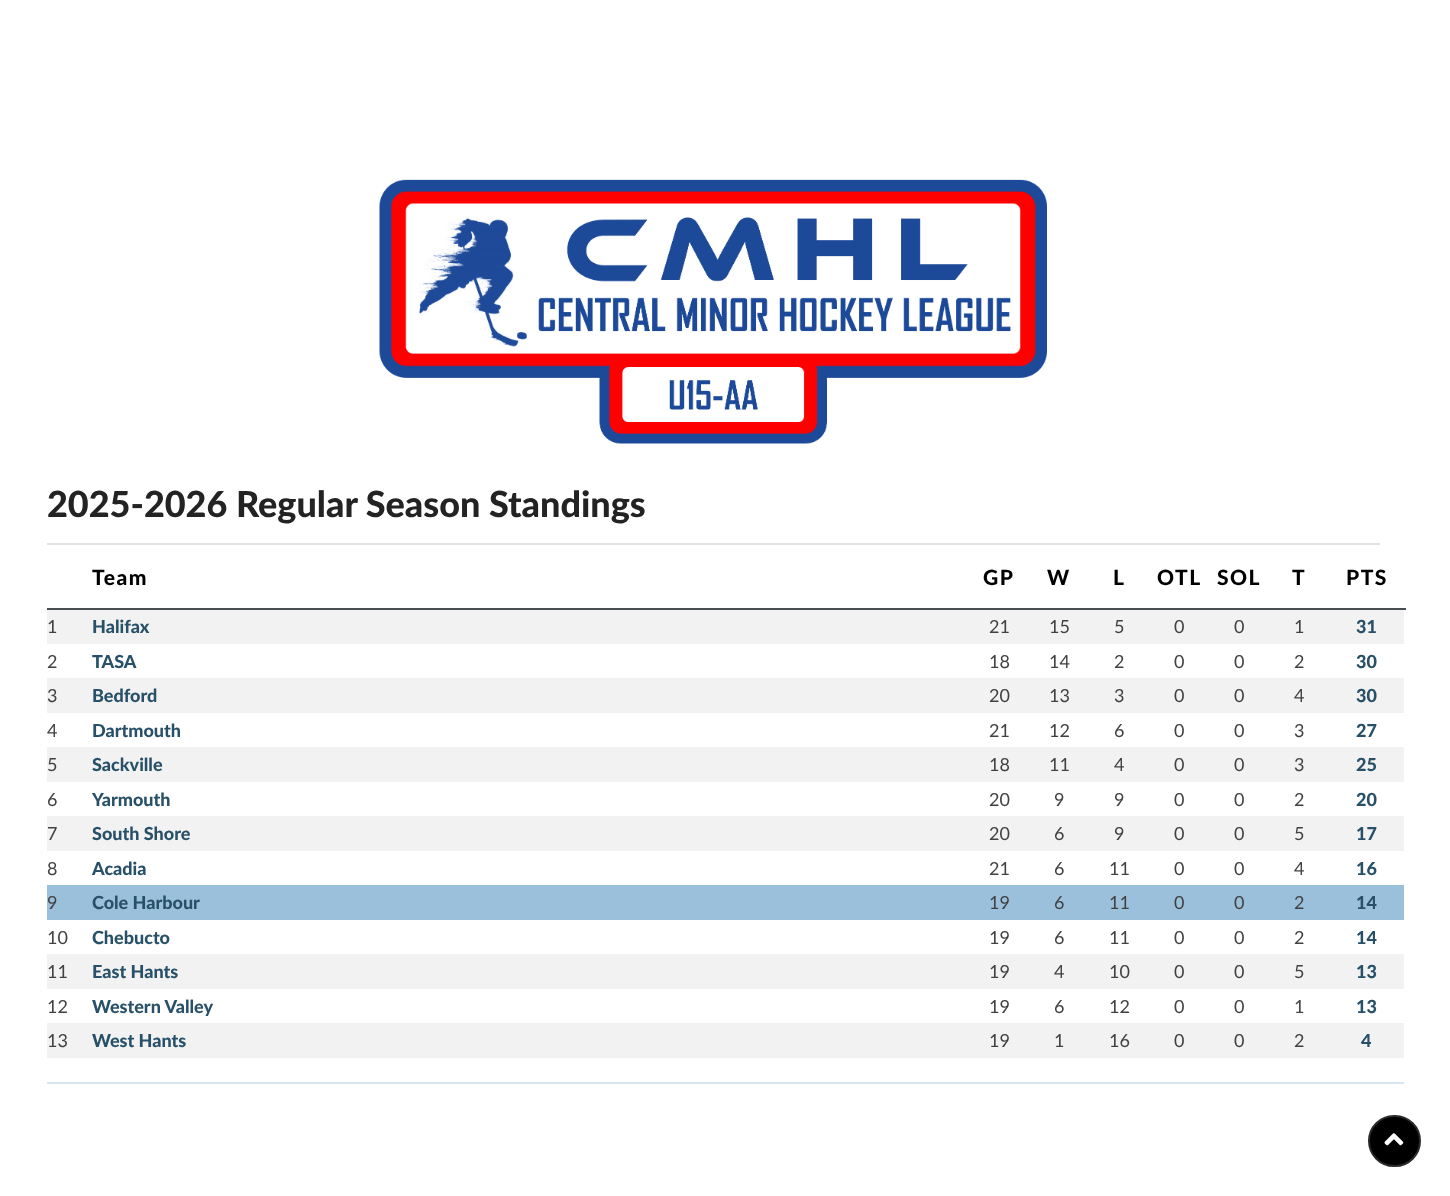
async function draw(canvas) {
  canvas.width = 1450
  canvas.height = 1196
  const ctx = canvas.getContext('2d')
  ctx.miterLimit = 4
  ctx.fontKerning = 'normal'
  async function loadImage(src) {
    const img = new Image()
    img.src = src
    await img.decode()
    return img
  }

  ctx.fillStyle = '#fff'
  ctx.fillRect(0, 0, 1450, 1196)
  ctx.drawImage(await loadImage('image0.png'), 379, 179, 668, 265)
  ctx.font = '900 36px Lato'
  ctx.fillStyle = '#232323'
  ctx.fillText('2025-2026 Regular Season Standings', 47, 517)
  ctx.fillStyle = '#e1e1e1'
  ctx.fillRect(47, 543, 1333, 2)
  ctx.letterSpacing = '1.5px'
  ctx.font = '900 21px Lato'
  ctx.fillStyle = '#000'
  ctx.fillText('Team', 92, 585)
  ctx.fillText('GP', 983, 585)
  ctx.fillText('W', 1047, 585)
  ctx.fillText('L', 1113, 585)
  ctx.fillText('OTL', 1157, 585)
  ctx.fillText('SOL', 1217, 585)
  ctx.fillText('T', 1292, 585)
  ctx.fillStyle = '#474e4f'
  ctx.fillRect(47, 608, 1359, 2)
  ctx.fillStyle = '#000'
  ctx.fillText('PTS', 1346, 585)
  ctx.fillStyle = '#f2f2f2'
  ctx.fillRect(47, 610, 1357, 34)
  ctx.letterSpacing = '0px'
  ctx.font = '18px Lato'
  ctx.fillStyle = '#414142'
  ctx.fillText('1', 47, 633)
  ctx.font = '900 18px Lato'
  ctx.fillStyle = '#285169'
  ctx.fillText('Halifax', 92, 633)
  ctx.font = '18px Lato'
  ctx.fillStyle = '#414142'
  ctx.fillText('21', 989, 633)
  ctx.fillText('15', 1049, 633)
  ctx.fillText('5', 1114, 633)
  ctx.fillText('0', 1174, 633)
  ctx.fillText('0', 1234, 633)
  ctx.fillText('1', 1294, 633)
  ctx.font = '900 18px Lato'
  ctx.fillStyle = '#285169'
  ctx.fillText('31', 1356, 633)
  ctx.font = '18px Lato'
  ctx.fillStyle = '#414142'
  ctx.fillText('2', 47, 668)
  ctx.font = '900 18px Lato'
  ctx.fillStyle = '#285169'
  ctx.fillText('TASA', 92, 668)
  ctx.font = '18px Lato'
  ctx.fillStyle = '#414142'
  ctx.fillText('18', 989, 668)
  ctx.fillText('14', 1049, 668)
  ctx.fillText('2', 1114, 668)
  ctx.fillText('0', 1174, 668)
  ctx.fillText('0', 1234, 668)
  ctx.fillText('2', 1294, 668)
  ctx.font = '900 18px Lato'
  ctx.fillStyle = '#285169'
  ctx.fillText('30', 1356, 668)
  ctx.fillStyle = '#f2f2f2'
  ctx.fillRect(47, 678, 1357, 35)
  ctx.font = '18px Lato'
  ctx.fillStyle = '#414142'
  ctx.fillText('3', 47, 702)
  ctx.font = '900 18px Lato'
  ctx.fillStyle = '#285169'
  ctx.fillText('Bedford', 92, 702)
  ctx.font = '18px Lato'
  ctx.fillStyle = '#414142'
  ctx.fillText('20', 989, 702)
  ctx.fillText('13', 1049, 702)
  ctx.fillText('3', 1114, 702)
  ctx.fillText('0', 1174, 702)
  ctx.fillText('0', 1234, 702)
  ctx.fillText('4', 1294, 702)
  ctx.font = '900 18px Lato'
  ctx.fillStyle = '#285169'
  ctx.fillText('30', 1356, 702)
  ctx.font = '18px Lato'
  ctx.fillStyle = '#414142'
  ctx.fillText('4', 47, 737)
  ctx.font = '900 18px Lato'
  ctx.fillStyle = '#285169'
  ctx.fillText('Dartmouth', 92, 737)
  ctx.font = '18px Lato'
  ctx.fillStyle = '#414142'
  ctx.fillText('21', 989, 737)
  ctx.fillText('12', 1049, 737)
  ctx.fillText('6', 1114, 737)
  ctx.fillText('0', 1174, 737)
  ctx.fillText('0', 1234, 737)
  ctx.fillText('3', 1294, 737)
  ctx.font = '900 18px Lato'
  ctx.fillStyle = '#285169'
  ctx.fillText('27', 1356, 737)
  ctx.fillStyle = '#f2f2f2'
  ctx.fillRect(47, 747, 1357, 35)
  ctx.font = '18px Lato'
  ctx.fillStyle = '#414142'
  ctx.fillText('5', 47, 771)
  ctx.font = '900 18px Lato'
  ctx.fillStyle = '#285169'
  ctx.fillText('Sackville', 92, 771)
  ctx.font = '18px Lato'
  ctx.fillStyle = '#414142'
  ctx.fillText('18', 989, 771)
  ctx.fillText('11', 1049, 771)
  ctx.fillText('4', 1114, 771)
  ctx.fillText('0', 1174, 771)
  ctx.fillText('0', 1234, 771)
  ctx.fillText('3', 1294, 771)
  ctx.font = '900 18px Lato'
  ctx.fillStyle = '#285169'
  ctx.fillText('25', 1356, 771)
  ctx.font = '18px Lato'
  ctx.fillStyle = '#414142'
  ctx.fillText('6', 47, 806)
  ctx.font = '900 18px Lato'
  ctx.fillStyle = '#285169'
  ctx.fillText('Yarmouth', 92, 806)
  ctx.font = '18px Lato'
  ctx.fillStyle = '#414142'
  ctx.fillText('20', 989, 806)
  ctx.fillText('9', 1054, 806)
  ctx.fillText('9', 1114, 806)
  ctx.fillText('0', 1174, 806)
  ctx.fillText('0', 1234, 806)
  ctx.fillText('2', 1294, 806)
  ctx.font = '900 18px Lato'
  ctx.fillStyle = '#285169'
  ctx.fillText('20', 1356, 806)
  ctx.fillStyle = '#f2f2f2'
  ctx.fillRect(47, 816, 1357, 35)
  ctx.font = '18px Lato'
  ctx.fillStyle = '#414142'
  ctx.fillText('7', 47, 840)
  ctx.font = '900 18px Lato'
  ctx.fillStyle = '#285169'
  ctx.fillText('South Shore', 92, 840)
  ctx.font = '18px Lato'
  ctx.fillStyle = '#414142'
  ctx.fillText('20', 989, 840)
  ctx.fillText('6', 1054, 840)
  ctx.fillText('9', 1114, 840)
  ctx.fillText('0', 1174, 840)
  ctx.fillText('0', 1234, 840)
  ctx.fillText('5', 1294, 840)
  ctx.font = '900 18px Lato'
  ctx.fillStyle = '#285169'
  ctx.fillText('17', 1356, 840)
  ctx.font = '18px Lato'
  ctx.fillStyle = '#414142'
  ctx.fillText('8', 47, 875)
  ctx.font = '900 18px Lato'
  ctx.fillStyle = '#285169'
  ctx.fillText('Acadia', 92, 875)
  ctx.font = '18px Lato'
  ctx.fillStyle = '#414142'
  ctx.fillText('21', 989, 875)
  ctx.fillText('6', 1054, 875)
  ctx.fillText('11', 1109, 875)
  ctx.fillText('0', 1174, 875)
  ctx.fillText('0', 1234, 875)
  ctx.fillText('4', 1294, 875)
  ctx.font = '900 18px Lato'
  ctx.fillStyle = '#285169'
  ctx.fillText('16', 1356, 875)
  ctx.fillStyle = '#9bc0db'
  ctx.fillRect(47, 885, 1357, 35)
  ctx.font = '18px Lato'
  ctx.fillStyle = '#414142'
  ctx.fillText('9', 47, 909)
  ctx.font = '900 18px Lato'
  ctx.fillStyle = '#285169'
  ctx.fillText('Cole Harbour', 92, 909)
  ctx.font = '18px Lato'
  ctx.fillStyle = '#414142'
  ctx.fillText('19', 989, 909)
  ctx.fillText('6', 1054, 909)
  ctx.fillText('11', 1109, 909)
  ctx.fillText('0', 1174, 909)
  ctx.fillText('0', 1234, 909)
  ctx.fillText('2', 1294, 909)
  ctx.font = '900 18px Lato'
  ctx.fillStyle = '#285169'
  ctx.fillText('14', 1356, 909)
  ctx.font = '18px Lato'
  ctx.fillStyle = '#414142'
  ctx.fillText('10', 47, 944)
  ctx.font = '900 18px Lato'
  ctx.fillStyle = '#285169'
  ctx.fillText('Chebucto', 92, 944)
  ctx.font = '18px Lato'
  ctx.fillStyle = '#414142'
  ctx.fillText('19', 989, 944)
  ctx.fillText('6', 1054, 944)
  ctx.fillText('11', 1109, 944)
  ctx.fillText('0', 1174, 944)
  ctx.fillText('0', 1234, 944)
  ctx.fillText('2', 1294, 944)
  ctx.font = '900 18px Lato'
  ctx.fillStyle = '#285169'
  ctx.fillText('14', 1356, 944)
  ctx.fillStyle = '#f2f2f2'
  ctx.fillRect(47, 954, 1357, 35)
  ctx.font = '18px Lato'
  ctx.fillStyle = '#414142'
  ctx.fillText('11', 47, 978)
  ctx.font = '900 18px Lato'
  ctx.fillStyle = '#285169'
  ctx.fillText('East Hants', 92, 978)
  ctx.font = '18px Lato'
  ctx.fillStyle = '#414142'
  ctx.fillText('19', 989, 978)
  ctx.fillText('4', 1054, 978)
  ctx.fillText('10', 1109, 978)
  ctx.fillText('0', 1174, 978)
  ctx.fillText('0', 1234, 978)
  ctx.fillText('5', 1294, 978)
  ctx.font = '900 18px Lato'
  ctx.fillStyle = '#285169'
  ctx.fillText('13', 1356, 978)
  ctx.font = '18px Lato'
  ctx.fillStyle = '#414142'
  ctx.fillText('12', 47, 1013)
  ctx.font = '900 18px Lato'
  ctx.fillStyle = '#285169'
  ctx.fillText('Western Valley', 92, 1013)
  ctx.font = '18px Lato'
  ctx.fillStyle = '#414142'
  ctx.fillText('19', 989, 1013)
  ctx.fillText('6', 1054, 1013)
  ctx.fillText('12', 1109, 1013)
  ctx.fillText('0', 1174, 1013)
  ctx.fillText('0', 1234, 1013)
  ctx.fillText('1', 1294, 1013)
  ctx.font = '900 18px Lato'
  ctx.fillStyle = '#285169'
  ctx.fillText('13', 1356, 1013)
  ctx.fillStyle = '#f2f2f2'
  ctx.fillRect(47, 1023, 1357, 35)
  ctx.font = '18px Lato'
  ctx.fillStyle = '#414142'
  ctx.fillText('13', 47, 1047)
  ctx.font = '900 18px Lato'
  ctx.fillStyle = '#285169'
  ctx.fillText('West Hants', 92, 1047)
  ctx.font = '18px Lato'
  ctx.fillStyle = '#414142'
  ctx.fillText('19', 989, 1047)
  ctx.fillText('1', 1054, 1047)
  ctx.fillText('16', 1109, 1047)
  ctx.fillText('0', 1174, 1047)
  ctx.fillText('0', 1234, 1047)
  ctx.fillText('2', 1294, 1047)
  ctx.font = '900 18px Lato'
  ctx.fillStyle = '#285169'
  ctx.fillText('4', 1361, 1047)
  ctx.fillStyle = '#d7e6ee'
  ctx.fillRect(47, 1082, 1357, 2)
  ctx.fillStyle = '#000'
  ctx.beginPath()
  ctx.roundRect(1369, 1116, 51, 50, 25)
  ctx.fill()
  ctx.strokeStyle = '#2a2a2a'
  ctx.lineWidth = 2
  ctx.stroke()
  ctx.drawImage(await loadImage('image1.png'), 1384, 1133, 20, 13)
}

draw(document.querySelector('canvas'))
